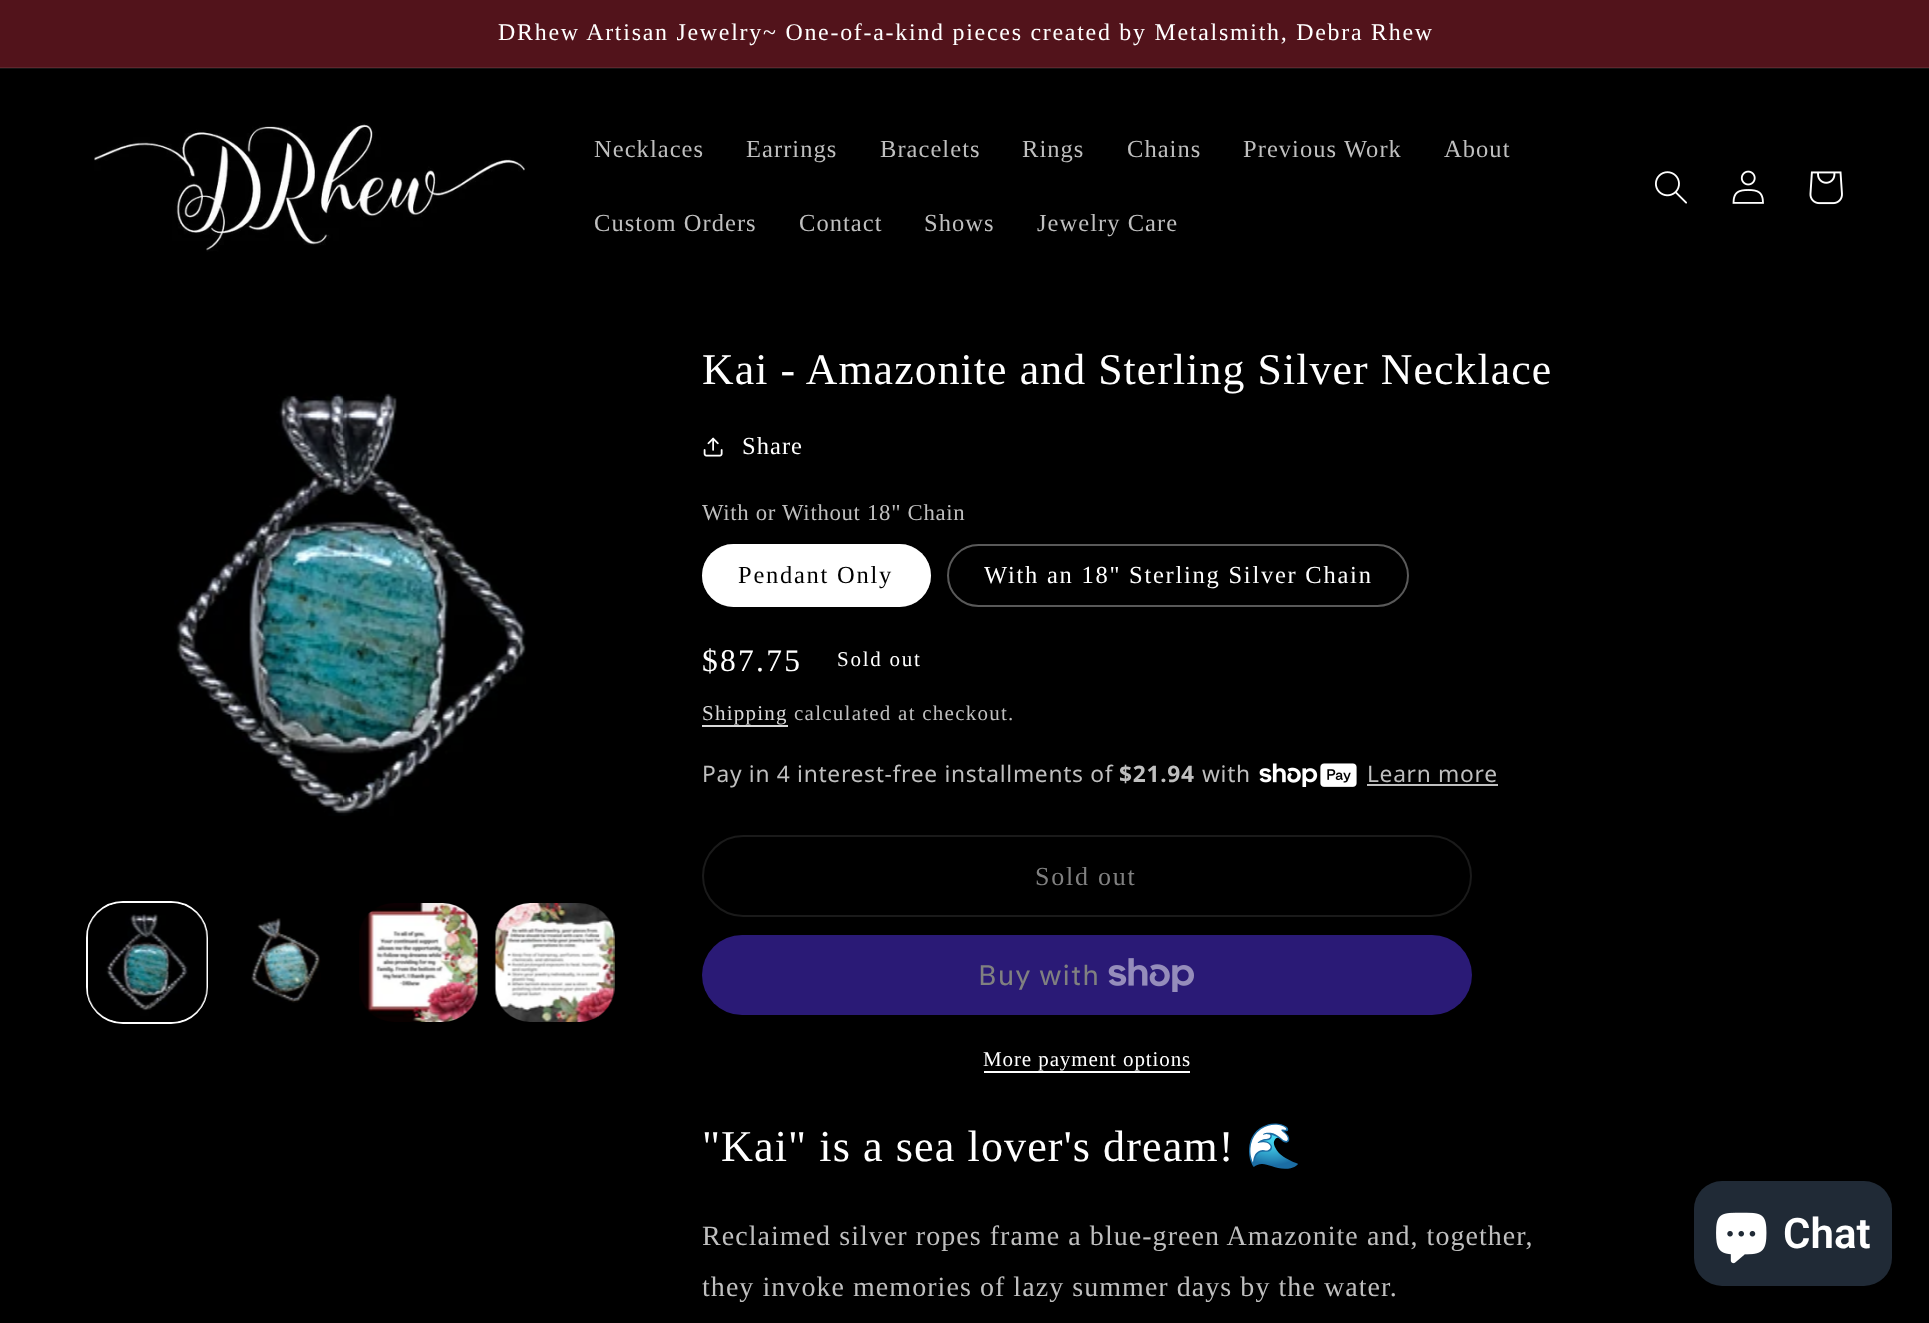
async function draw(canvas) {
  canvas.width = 1929
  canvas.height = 1323
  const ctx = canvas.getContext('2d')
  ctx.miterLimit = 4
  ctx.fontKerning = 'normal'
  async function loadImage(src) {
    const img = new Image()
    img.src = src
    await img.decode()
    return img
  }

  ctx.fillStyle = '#000'
  ctx.fillRect(0, 0, 1929, 1323)
  ctx.fillStyle = '#141414'
  ctx.fillRect(0, 68, 1929, 1)
  ctx.fillStyle = '#52131b'
  ctx.fillRect(0, 0, 1929, 67)
  ctx.fillStyle = '#60262d'
  ctx.fillRect(0, 67, 1929, 1)
  ctx.letterSpacing = '1.75px'
  ctx.font = '23.9px Liberation Serif'
  ctx.fillStyle = '#fff'
  ctx.fillText('DRhew Artisan Jewelry~ One-of-a-kind pieces created by Metalsmith, Debra Rhew', 498, 40)
  ctx.drawImage(await loadImage('image0.png'), 94, 122, 431, 130)
  ctx.letterSpacing = '1.05px'
  ctx.font = '24.5px Liberation Serif'
  ctx.fillStyle = '#bfbfbf'
  ctx.fillText('Necklaces', 594, 157)
  ctx.fillText('Earrings', 746, 157)
  ctx.fillText('Bracelets', 880, 157)
  ctx.fillText('Rings', 1022, 157)
  ctx.fillText('Chains', 1127, 157)
  ctx.fillText('Previous Work', 1243, 157)
  ctx.fillText('About', 1444, 157)
  ctx.fillText('Custom Orders', 594, 231)
  ctx.fillText('Contact', 799, 231)
  ctx.fillText('Shows', 924, 231)
  ctx.fillText('Jewelry Care', 1037, 231)
  ctx.drawImage(await loadImage('image1.png'), 1655, 171, 32, 33)
  ctx.drawImage(await loadImage('image2.png'), 1732, 170, 32, 34)
  ctx.drawImage(await loadImage('image3.png'), 1809, 171, 34, 34)
  ctx.drawImage(await loadImage('image4.png'), 174, 393, 352, 423)
  ctx.beginPath()
  ctx.roundRect(87, 902, 120, 121, 36)
  ctx.strokeStyle = '#fff'
  ctx.lineWidth = 2
  ctx.stroke()
  ctx.drawImage(await loadImage('image5.png'), 88, 903, 119, 119)
  ctx.drawImage(await loadImage('image6.png'), 251, 918, 70, 85)
  ctx.drawImage(await loadImage('image7.png'), 359, 903, 120, 119)
  ctx.drawImage(await loadImage('image8.png'), 494, 903, 121, 119)
  ctx.letterSpacing = '1.1px'
  ctx.font = '43.75px Liberation Serif'
  ctx.fillStyle = '#fff'
  ctx.fillText('Kai - Amazonite and Sterling Silver Necklace', 702, 384)
  ctx.drawImage(await loadImage('image9.png'), 703, 437, 20, 20)
  ctx.letterSpacing = '1.05px'
  ctx.font = '24.5px Liberation Serif'
  ctx.fillText('Share', 742, 454)
  ctx.letterSpacing = '0.7px'
  ctx.font = '22.75px Liberation Serif'
  ctx.fillStyle = '#bfbfbf'
  ctx.fillText('With or Without 18" Chain', 702, 520)
  ctx.fillStyle = '#fff'
  ctx.beginPath()
  ctx.roundRect(702, 544, 229, 63, 31.5)
  ctx.fill()
  ctx.beginPath()
  ctx.roundRect(703, 545, 227, 61, 30.5)
  ctx.strokeStyle = '#ffffff59'
  ctx.stroke()
  ctx.letterSpacing = '1.75px'
  ctx.font = '24.5px Liberation Serif'
  ctx.fillStyle = '#000'
  ctx.fillText('Pendant Only', 738, 583)
  ctx.beginPath()
  ctx.roundRect(948, 545, 460, 61, 30.5)
  ctx.strokeStyle = '#595959'
  ctx.stroke()
  ctx.fillStyle = '#fff'
  ctx.fillText('With an 18" Sterling Silver Chain', 984, 583)
  ctx.letterSpacing = '2.25px'
  ctx.font = '31.5px Liberation Serif'
  ctx.fillText('$87.75', 702, 671)
  ctx.letterSpacing = '1.75px'
  ctx.font = '21px Liberation Serif'
  ctx.fillText('Sold out', 837, 666)
  ctx.letterSpacing = '1.25px'
  ctx.fillStyle = '#d9d9d9'
  ctx.fillText('Shipping', 702, 720)
  ctx.fillRect(702, 725, 86, 2)
  ctx.fillStyle = '#bfbfbf'
  ctx.fillText('calculated at checkout.', 794, 720)
  ctx.letterSpacing = '0.7px'
  ctx.font = '22.75px Noto Sans'
  ctx.fillText('Pay in 4 interest-free installments of', 702, 782)
  ctx.font = 'bold 22.75px Noto Sans'
  ctx.fillText('$21.94', 1119, 782)
  ctx.font = '22.75px Noto Sans'
  ctx.fillText('with', 1202, 782)
  ctx.drawImage(await loadImage('image10.png'), 1259, 763, 98, 24)
  ctx.fillText('Learn more', 1367, 782)
  ctx.fillRect(1367, 784, 131, 2)
  ctx.beginPath()
  ctx.roundRect(703, 836, 768, 80, 40)
  ctx.strokeStyle = '#1a1a1a'
  ctx.stroke()
  ctx.letterSpacing = '1.75px'
  ctx.font = '26px Liberation Serif'
  ctx.fillStyle = '#808080'
  ctx.fillText('Sold out', 1035, 885)
  ctx.fillStyle = '#2a1a76'
  ctx.beginPath()
  ctx.roundRect(702, 935, 770, 80, 40)
  ctx.fill()
  ctx.letterSpacing = '1.05px'
  ctx.font = '28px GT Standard'
  ctx.fillStyle = '#808080'
  ctx.fillText('Buy with', 978, 985)
  ctx.drawImage(await loadImage('image11.png'), 1108, 958, 86, 34)
  ctx.letterSpacing = '0.9px'
  ctx.font = '21px Liberation Serif'
  ctx.fillStyle = '#fff'
  ctx.fillText('More payment options', 983, 1066)
  ctx.fillRect(984, 1071, 206, 2)
  ctx.letterSpacing = '1.1px'
  ctx.font = '44.1px Liberation Serif'
  ctx.fillText('"Kai" is a sea lover\'s dream!', 702, 1161)
  ctx.font = '44.1px Noto Color Emoji'
  ctx.fillText('🌊', 1246, 1161)
  ctx.letterSpacing = '1.05px'
  ctx.font = '28px Liberation Serif'
  ctx.fillStyle = '#bfbfbf'
  ctx.fillText('Reclaimed silver ropes frame a blue-green Amazonite and, together,', 702, 1245)
  ctx.fillText('they invoke memories of lazy summer days by the water.', 702, 1296)
  ctx.fillStyle = '#202a36'
  ctx.beginPath()
  ctx.roundRect(1694, 1181, 198, 105, 28)
  ctx.fill()
  ctx.drawImage(await loadImage('image12.png'), 1716, 1212, 51, 52)
  ctx.letterSpacing = '0px'
  ctx.font = '600 42px Roboto'
  ctx.fillStyle = '#fff'
  ctx.fillText('Chat', 1783, 1248)
}

draw(document.querySelector('canvas'))
